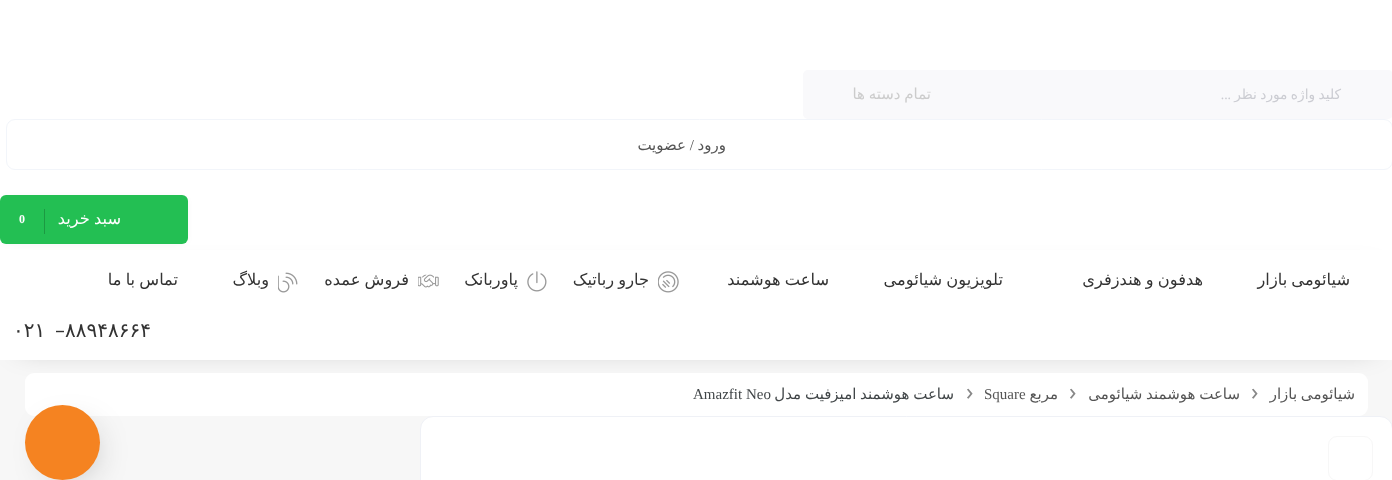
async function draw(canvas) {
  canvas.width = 1392
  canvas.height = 480
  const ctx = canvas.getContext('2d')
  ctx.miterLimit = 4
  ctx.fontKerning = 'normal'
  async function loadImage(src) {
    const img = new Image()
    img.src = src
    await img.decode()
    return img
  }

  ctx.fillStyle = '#f7f7f7'
  ctx.fillRect(0, 0, 1392, 480)
  ctx.fillStyle = '#fff'
  ctx.fillRect(0, 0, 1392, 250)
  ctx.fillStyle = '#f9f9fb'
  ctx.beginPath()
  ctx.roundRect(803, 70, 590, 49, 5)
  ctx.fill()
  ctx.wordSpacing = '-1px'
  ctx.direction = 'rtl'
  ctx.font = '13.75px DejaVu Sans'
  ctx.fillStyle = '#cbccd2'
  ctx.fillText('کلید واژه مورد نظر', 1341, 99)
  ctx.wordSpacing = '0px'
  ctx.font = '13.75px Liberation Serif'
  ctx.fillText('...', 1231, 99)
  ctx.wordSpacing = '-1px'
  ctx.font = '15px DejaVu Sans'
  ctx.fillStyle = '#ccc'
  ctx.fillText('تمام دسته ها', 931, 99)
  ctx.beginPath()
  ctx.roundRect(6.5, 119.5, 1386, 50, 8.5)
  ctx.strokeStyle = '#f2f5fa'
  ctx.stroke()
  ctx.wordSpacing = '0px'
  ctx.fillStyle = '#555'
  ctx.fillText('ورود', 726, 150)
  ctx.font = '15px Liberation Serif'
  ctx.fillText('/', 694, 150)
  ctx.font = '15px DejaVu Sans'
  ctx.fillText('عضویت', 686, 150)
  ctx.fillStyle = '#0000004f'
  ctx.filter = 'blur(14.5px)'
  ctx.beginPath()
  ctx.rect(20, 276, 1353, 70)
  ctx.fill()
  ctx.filter = 'none'
  ctx.fillStyle = '#fff'
  ctx.fillRect(0, 250, 1392, 110)
  ctx.fillStyle = '#0000001a'
  ctx.filter = 'blur(4.5px)'
  ctx.beginPath()
  ctx.roundRect(4, 200, 180, 41, 2.5)
  ctx.fill()
  ctx.filter = 'none'
  ctx.fillStyle = '#23bf53'
  ctx.beginPath()
  ctx.roundRect(0, 195, 188, 49, 6)
  ctx.fill()
  ctx.wordSpacing = '-1px'
  ctx.font = '16.25px DejaVu Sans'
  ctx.fillStyle = '#fff'
  ctx.fillText('سبد خرید', 121, 224)
  ctx.fillStyle = '#1c9942'
  ctx.fillRect(44, 209, 1, 25)
  ctx.wordSpacing = '0px'
  ctx.direction = 'ltr'
  ctx.font = 'bold 12px Liberation Serif'
  ctx.fillStyle = '#fff'
  ctx.fillText('0', 19, 223)
  ctx.wordSpacing = '-1px'
  ctx.direction = 'rtl'
  ctx.font = '16.25px DejaVu Sans'
  ctx.fillStyle = '#333'
  ctx.fillText('شیائومی بازار', 1350, 285)
  ctx.fillText('هدفون و هندزفری', 1203, 285)
  ctx.fillText('تلویزیون شیائومی', 1003, 285)
  ctx.fillText('ساعت هوشمند', 829, 285)
  ctx.drawImage(await loadImage('image0.png'), 658, 271, 21, 22)
  ctx.fillText('جارو رباتیک', 649, 285)
  ctx.drawImage(await loadImage('image1.png'), 527, 271, 20, 21)
  ctx.wordSpacing = '0px'
  ctx.fillText('پاوربانک', 518, 285)
  ctx.drawImage(await loadImage('image2.png'), 418, 274, 21, 14)
  ctx.wordSpacing = '-1px'
  ctx.fillText('فروش عمده', 409, 285)
  ctx.drawImage(await loadImage('image3.png'), 278, 272, 20, 21)
  ctx.wordSpacing = '0px'
  ctx.fillText('وبلاگ', 269, 285)
  ctx.wordSpacing = '-1px'
  ctx.fillText('تماس با ما', 178, 285)
  ctx.wordSpacing = '0px'
  ctx.direction = 'ltr'
  ctx.font = '20px DejaVu Sans'
  ctx.fillText('–۸۸۹۴۸۶۶۴', 55, 337)
  ctx.fillText('۰۲۱', 13, 337)
  ctx.fillStyle = '#fff'
  ctx.beginPath()
  ctx.roundRect(25, 373, 1343, 43, 9)
  ctx.fill()
  ctx.wordSpacing = '-1px'
  ctx.direction = 'rtl'
  ctx.font = '15px DejaVu Sans'
  ctx.fillStyle = '#555'
  ctx.fillText('شیائومی بازار', 1355, 399)
  ctx.wordSpacing = '0px'
  ctx.direction = 'ltr'
  ctx.font = '24px Noto Sans'
  ctx.fillStyle = '#888'
  ctx.fillText('›', 1251, 400)
  ctx.wordSpacing = '-1px'
  ctx.direction = 'rtl'
  ctx.font = '15px DejaVu Sans'
  ctx.fillStyle = '#555'
  ctx.fillText('ساعت هوشمند شیائومی', 1240, 399)
  ctx.wordSpacing = '0px'
  ctx.direction = 'ltr'
  ctx.font = '24px Noto Sans'
  ctx.fillStyle = '#888'
  ctx.fillText('›', 1069, 400)
  ctx.direction = 'rtl'
  ctx.font = '15px DejaVu Sans'
  ctx.fillStyle = '#555'
  ctx.fillText('مربع', 1058, 399)
  ctx.direction = 'ltr'
  ctx.font = '15px Liberation Serif'
  ctx.fillText('Square', 984, 399)
  ctx.font = '24px Noto Sans'
  ctx.fillStyle = '#888'
  ctx.fillText('›', 966, 400)
  ctx.wordSpacing = '-1px'
  ctx.direction = 'rtl'
  ctx.font = '15px DejaVu Sans'
  ctx.fillStyle = '#414648'
  ctx.fillText('ساعت هوشمند امیزفیت مدل', 954, 399)
  ctx.wordSpacing = '0px'
  ctx.direction = 'ltr'
  ctx.font = '15px Liberation Serif'
  ctx.fillText('Amazfit Neo', 693, 399)
  ctx.fillStyle = '#fff'
  ctx.beginPath()
  ctx.roundRect(420.5, 416.5, 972, 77, 12.5)
  ctx.fill()
  ctx.strokeStyle = '#eff1f6'
  ctx.stroke()
  ctx.beginPath()
  ctx.roundRect(1328.5, 436.5, 44, 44, 8.5)
  ctx.strokeStyle = '#f7f7f7'
  ctx.stroke()
  ctx.fillStyle = '#1010104d'
  ctx.filter = 'blur(17.5px)'
  ctx.beginPath()
  ctx.roundRect(48, 429, 45, 45, 22.5)
  ctx.fill()
  ctx.filter = 'none'
  ctx.fillStyle = '#f58321'
  ctx.beginPath()
  ctx.arc(62.5, 442.5, 37.5, 0, 2 * Math.PI)
  ctx.fill()
}

draw(document.querySelector('canvas'))
